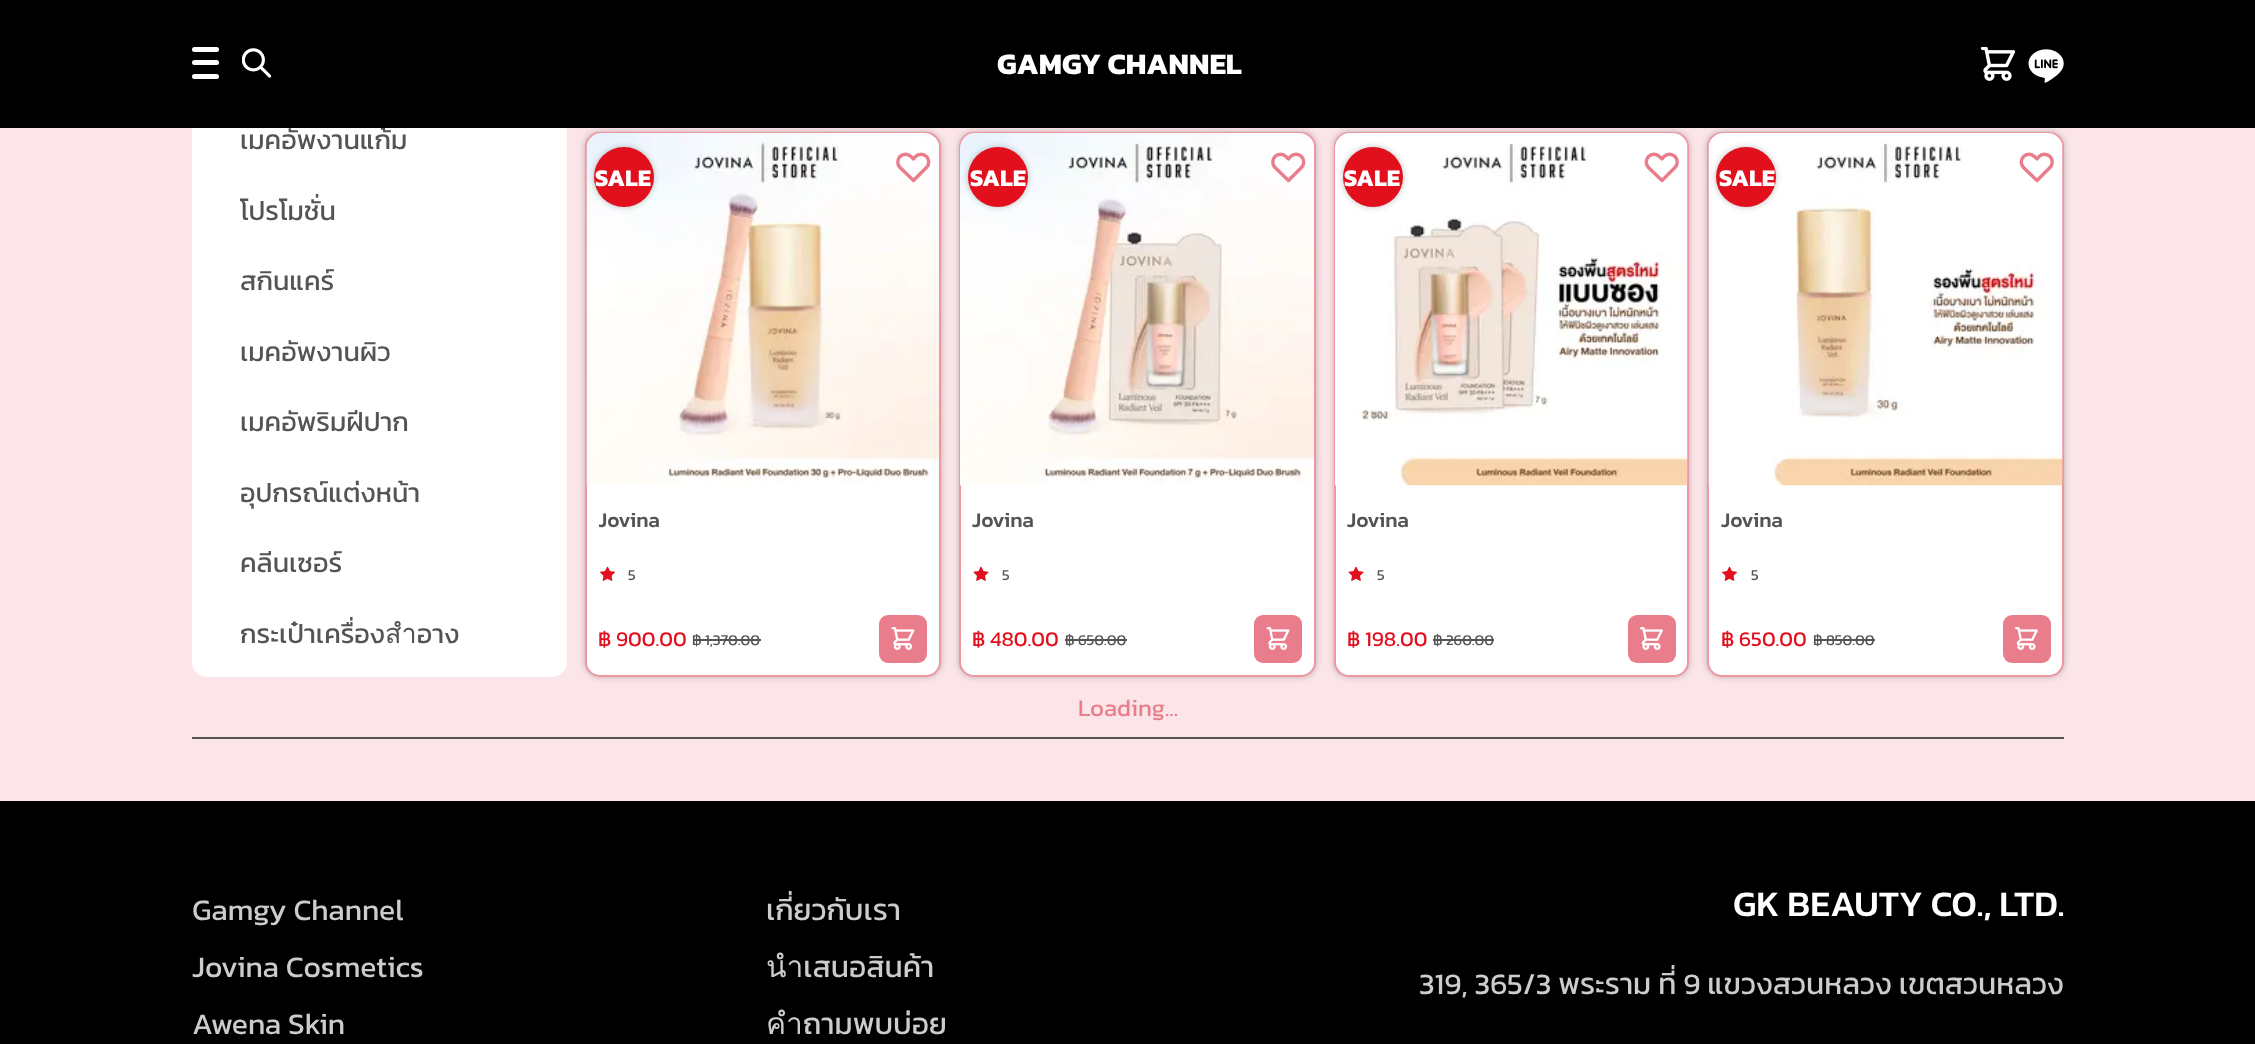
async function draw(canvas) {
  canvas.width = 2255
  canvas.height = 1044
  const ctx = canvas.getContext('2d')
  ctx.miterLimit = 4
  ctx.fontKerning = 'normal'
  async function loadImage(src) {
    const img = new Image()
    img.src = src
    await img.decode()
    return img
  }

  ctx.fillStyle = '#fbe5e8'
  ctx.fillRect(0, 0, 2255, 1044)
  ctx.fillStyle = '#fff'
  ctx.beginPath()
  ctx.roundRect(192, -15, 375, 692, 15)
  ctx.fill()
  ctx.font = '27px Kanit'
  ctx.fillStyle = '#545454'
  ctx.fillText('เมคอัพงานแก้ม', 240, 149)
  ctx.fillStyle = '#00000040'
  ctx.filter = 'blur(3px)'
  ctx.beginPath()
  ctx.roundRect(585, 132, 356, 545, 15)
  ctx.fill()
  ctx.filter = 'none'
  ctx.filter = 'blur(3px)'
  ctx.beginPath()
  ctx.roundRect(959, 132, 357, 545, 15)
  ctx.fill()
  ctx.filter = 'none'
  ctx.filter = 'blur(3px)'
  ctx.beginPath()
  ctx.roundRect(1334, 132, 355, 545, 15)
  ctx.fill()
  ctx.filter = 'none'
  ctx.filter = 'blur(3px)'
  ctx.beginPath()
  ctx.roundRect(1707, 132, 357, 545, 15)
  ctx.fill()
  ctx.filter = 'none'
  ctx.fillStyle = '#000'
  ctx.fillRect(0, 0, 2255, 128)
  ctx.fillStyle = '#fff'
  ctx.beginPath()
  ctx.roundRect(192, 47, 27, 5, 2.5)
  ctx.fill()
  ctx.beginPath()
  ctx.roundRect(192, 60, 27, 5, 2.5)
  ctx.fill()
  ctx.beginPath()
  ctx.roundRect(192, 74, 27, 5, 2.5)
  ctx.fill()
  ctx.drawImage(await loadImage('image0.png'), 242, 48, 30, 30)
  ctx.font = 'bold 30px Kanit'
  ctx.fillText('GAMGY CHANNEL', 997, 74)
  ctx.drawImage(await loadImage('image1.png'), 1980, 47, 36, 34)
  ctx.drawImage(await loadImage('image2.png'), 2028, 49, 36, 34)
  ctx.font = '27px Kanit'
  ctx.fillStyle = '#545454'
  ctx.fillText('โปรโมชั่น', 240, 220)
  ctx.fillText('สกินแคร์', 240, 290)
  ctx.fillText('เมคอัพงานผิว', 240, 361)
  ctx.fillText('เมคอัพริมฝีปาก', 240, 431)
  ctx.fillText('อุปกรณ์แต่งหน้า', 240, 502)
  ctx.fillText('คลีนเซอร์', 240, 572)
  ctx.fillText('กระเป๋าเครื่องสำอาง', 240, 643)
  ctx.fillStyle = '#fff'
  ctx.beginPath()
  ctx.roundRect(586, 133, 354, 543, 14)
  ctx.fill()
  ctx.strokeStyle = '#ee97a3'
  ctx.lineWidth = 2
  ctx.stroke()
  ctx.drawImage(await loadImage('image3.png'), 586, 133, 353, 353)
  ctx.fillStyle = '#00000040'
  ctx.filter = 'blur(3px)'
  ctx.beginPath()
  ctx.roundRect(594, 147, 60, 60, 30)
  ctx.fill()
  ctx.filter = 'none'
  ctx.fillStyle = '#e2101d'
  ctx.beginPath()
  ctx.arc(624, 177, 30, 0, 2 * Math.PI)
  ctx.fill()
  ctx.font = 'bold 24px Kanit'
  ctx.fillStyle = '#fff'
  ctx.fillText('SALE', 595, 186)
  ctx.beginPath()
  ctx.moveTo(900, 156.5)
  ctx.bezierCurveTo(897, 159.5, 897, 164.5, 900, 167.5)
  ctx.lineTo(913.5, 180.5)
  ctx.lineTo(926.5, 167.5)
  ctx.bezierCurveTo(929.5, 164.5, 929.5, 159.5, 926.5, 156.5)
  ctx.bezierCurveTo(923.5, 153.5, 918.5, 153.5, 915.5, 156.5)
  ctx.lineTo(913.5, 159)
  ctx.lineTo(911, 156.5)
  ctx.bezierCurveTo(908, 153.5, 903, 153.5, 900, 156.5)
  ctx.closePath()
  ctx.strokeStyle = '#ea7d8c'
  ctx.lineWidth = 3.4
  ctx.lineCap = 'round'
  ctx.lineJoin = 'round'
  ctx.stroke()
  ctx.save()
  ctx.beginPath()
  ctx.rect(599, 504, 328, 32)
  ctx.clip()
  ctx.font = '500 21px Kanit'
  ctx.fillStyle = '#545454'
  ctx.fillText('Jovina', 598, 527)
  ctx.restore()
  ctx.drawImage(await loadImage('image4.png'), 600, 566, 15, 15)
  ctx.font = '15px Kanit'
  ctx.fillStyle = '#545454'
  ctx.fillText('5', 628, 580)
  ctx.font = '21px Kanit'
  ctx.fillStyle = '#e2101d'
  ctx.fillText('฿ 900.00', 598, 646)
  ctx.font = '15px Kanit'
  ctx.fillStyle = '#545454'
  ctx.fillText('฿ 1,370.00', 692, 645)
  ctx.fillRect(693, 639, 68, 2)
  ctx.fillStyle = '#ea7d8c'
  ctx.beginPath()
  ctx.roundRect(879, 615, 48, 48, 9)
  ctx.fill()
  ctx.drawImage(await loadImage('image5.png'), 891, 627, 24, 23)
  ctx.fillStyle = '#fff'
  ctx.beginPath()
  ctx.roundRect(960, 133, 355, 543, 14)
  ctx.fill()
  ctx.strokeStyle = '#ee97a3'
  ctx.lineWidth = 2
  ctx.lineJoin = 'miter'
  ctx.stroke()
  ctx.drawImage(await loadImage('image6.png'), 960, 133, 354, 353)
  ctx.fillStyle = '#00000040'
  ctx.filter = 'blur(3px)'
  ctx.beginPath()
  ctx.roundRect(968, 147, 60, 60, 30)
  ctx.fill()
  ctx.filter = 'none'
  ctx.fillStyle = '#e2101d'
  ctx.beginPath()
  ctx.arc(998, 177, 30, 0, 2 * Math.PI)
  ctx.fill()
  ctx.font = 'bold 24px Kanit'
  ctx.fillStyle = '#fff'
  ctx.fillText('SALE', 970, 186)
  ctx.beginPath()
  ctx.moveTo(1275, 156.5)
  ctx.bezierCurveTo(1272, 159.5, 1272, 164.5, 1275, 167.5)
  ctx.lineTo(1288.5, 180.5)
  ctx.lineTo(1301.5, 167.5)
  ctx.bezierCurveTo(1304.5, 164.5, 1304.5, 159.5, 1301.5, 156.5)
  ctx.bezierCurveTo(1298.5, 153.5, 1293.5, 153.5, 1290.5, 156.5)
  ctx.lineTo(1288.5, 159)
  ctx.lineTo(1286, 156.5)
  ctx.bezierCurveTo(1283, 153.5, 1278, 153.5, 1275, 156.5)
  ctx.closePath()
  ctx.strokeStyle = '#ea7d8c'
  ctx.lineWidth = 3.4
  ctx.lineJoin = 'round'
  ctx.stroke()
  ctx.font = '500 21px Kanit'
  ctx.fillStyle = '#545454'
  ctx.fillText('Jovina', 972, 527)
  ctx.drawImage(await loadImage('image7.png'), 973, 566, 16, 15)
  ctx.font = '15px Kanit'
  ctx.fillText('5', 1002, 580)
  ctx.font = '21px Kanit'
  ctx.fillStyle = '#e2101d'
  ctx.fillText('฿ 480.00', 972, 646)
  ctx.font = '15px Kanit'
  ctx.fillStyle = '#545454'
  ctx.fillText('฿', 1065, 645)
  ctx.fillRect(1065, 639, 14, 2)
  ctx.fillText('650.00', 1078, 645)
  ctx.fillRect(1079, 639, 48, 2)
  ctx.fillStyle = '#ea7d8c'
  ctx.beginPath()
  ctx.roundRect(1254, 615, 48, 48, 9)
  ctx.fill()
  ctx.drawImage(await loadImage('image5.png'), 1266, 627, 24, 23)
  ctx.fillStyle = '#fff'
  ctx.beginPath()
  ctx.roundRect(1335, 133, 353, 543, 14)
  ctx.fill()
  ctx.strokeStyle = '#ee97a3'
  ctx.lineWidth = 2
  ctx.lineJoin = 'miter'
  ctx.stroke()
  ctx.drawImage(await loadImage('image8.png'), 1335, 133, 353, 353)
  ctx.fillStyle = '#00000040'
  ctx.filter = 'blur(3px)'
  ctx.beginPath()
  ctx.roundRect(1343, 147, 60, 60, 30)
  ctx.fill()
  ctx.filter = 'none'
  ctx.fillStyle = '#e2101d'
  ctx.beginPath()
  ctx.arc(1373, 177, 30, 0, 2 * Math.PI)
  ctx.fill()
  ctx.font = 'bold 24px Kanit'
  ctx.fillStyle = '#fff'
  ctx.fillText('SALE', 1344, 186)
  ctx.beginPath()
  ctx.moveTo(1648.5, 156.5)
  ctx.bezierCurveTo(1645.5, 159.5, 1645.5, 164.5, 1648.5, 167.5)
  ctx.lineTo(1662, 180.5)
  ctx.lineTo(1675, 167.5)
  ctx.bezierCurveTo(1678, 164.5, 1678, 159.5, 1675, 156.5)
  ctx.bezierCurveTo(1672, 153.5, 1667, 153.5, 1664, 156.5)
  ctx.lineTo(1662, 159)
  ctx.lineTo(1659.5, 156.5)
  ctx.bezierCurveTo(1656.5, 153.5, 1651.5, 153.5, 1648.5, 156.5)
  ctx.closePath()
  ctx.strokeStyle = '#ea7d8c'
  ctx.lineWidth = 3.4
  ctx.lineJoin = 'round'
  ctx.stroke()
  ctx.font = '500 21px Kanit'
  ctx.fillStyle = '#545454'
  ctx.fillText('Jovina', 1347, 527)
  ctx.drawImage(await loadImage('image7.png'), 1348, 566, 16, 15)
  ctx.font = '15px Kanit'
  ctx.fillText('5', 1377, 580)
  ctx.font = '21px Kanit'
  ctx.fillStyle = '#e2101d'
  ctx.fillText('฿ 198.00', 1347, 646)
  ctx.font = '15px Kanit'
  ctx.fillStyle = '#545454'
  ctx.fillText('฿ 260.00', 1433, 645)
  ctx.fillRect(1433, 639, 61, 2)
  ctx.fillStyle = '#ea7d8c'
  ctx.beginPath()
  ctx.roundRect(1628, 615, 48, 48, 9)
  ctx.fill()
  ctx.drawImage(await loadImage('image9.png'), 1640, 627, 23, 23)
  ctx.fillStyle = '#fff'
  ctx.beginPath()
  ctx.roundRect(1708, 133, 355, 543, 14)
  ctx.fill()
  ctx.strokeStyle = '#ee97a3'
  ctx.lineWidth = 2
  ctx.lineJoin = 'miter'
  ctx.stroke()
  ctx.drawImage(await loadImage('image10.png'), 1708, 133, 355, 353)
  ctx.fillStyle = '#00000040'
  ctx.filter = 'blur(3px)'
  ctx.beginPath()
  ctx.roundRect(1716, 147, 60, 60, 30)
  ctx.fill()
  ctx.filter = 'none'
  ctx.fillStyle = '#e2101d'
  ctx.beginPath()
  ctx.arc(1746, 177, 30, 0, 2 * Math.PI)
  ctx.fill()
  ctx.font = 'bold 24px Kanit'
  ctx.fillStyle = '#fff'
  ctx.fillText('SALE', 1719, 186)
  ctx.beginPath()
  ctx.moveTo(2023.5, 156.5)
  ctx.bezierCurveTo(2020.5, 159.5, 2020.5, 164.5, 2023.5, 167.5)
  ctx.lineTo(2037, 180.5)
  ctx.lineTo(2050, 167.5)
  ctx.bezierCurveTo(2053, 164.5, 2053, 159.5, 2050, 156.5)
  ctx.bezierCurveTo(2047, 153.5, 2042, 153.5, 2039, 156.5)
  ctx.lineTo(2037, 159)
  ctx.lineTo(2034.5, 156.5)
  ctx.bezierCurveTo(2031.5, 153.5, 2026.5, 153.5, 2023.5, 156.5)
  ctx.closePath()
  ctx.strokeStyle = '#ea7d8c'
  ctx.lineWidth = 3.4
  ctx.lineJoin = 'round'
  ctx.stroke()
  ctx.font = '500 21px Kanit'
  ctx.fillStyle = '#545454'
  ctx.fillText('Jovina', 1721, 527)
  ctx.drawImage(await loadImage('image4.png'), 1722, 566, 15, 15)
  ctx.font = '15px Kanit'
  ctx.fillText('5', 1751, 580)
  ctx.font = '21px Kanit'
  ctx.fillStyle = '#e2101d'
  ctx.fillText('฿ 650.00', 1721, 646)
  ctx.font = '15px Kanit'
  ctx.fillStyle = '#545454'
  ctx.fillText('฿ 850.00', 1813, 645)
  ctx.fillRect(1814, 639, 61, 2)
  ctx.fillStyle = '#ea7d8c'
  ctx.beginPath()
  ctx.roundRect(2003, 615, 48, 48, 9)
  ctx.fill()
  ctx.drawImage(await loadImage('image9.png'), 2015, 627, 23, 23)
  ctx.fillStyle = '#545454'
  ctx.fillRect(192, 737, 1872, 2)
  ctx.font = '24px Kanit'
  ctx.fillStyle = '#ea7d8c'
  ctx.fillText('Loading...', 1078, 716)
  ctx.fillStyle = '#000'
  ctx.fillRect(0, 801, 2255, 243)
  ctx.font = '30px Kanit'
  ctx.fillStyle = '#ccc'
  ctx.fillText('Gamgy Channel', 192, 920)
  ctx.fillText('Jovina Cosmetics', 192, 977)
  ctx.fillText('Awena Skin', 192, 1034)
  ctx.fillText('เกี่ยวกับเรา', 766, 920)
  ctx.fillText('นำเสนอสินค้า', 766, 977)
  ctx.fillText('คำถามพบบ่อย', 766, 1034)
  ctx.font = '500 36px Kanit'
  ctx.fillStyle = '#fff'
  ctx.fillText('GK BEAUTY CO., LTD.', 1733, 916)
  ctx.font = '30px Kanit'
  ctx.fillStyle = '#ccc'
  ctx.fillText('319, 365/3 พระราม ที่ 9 แขวงสวนหลวง เขตสวนหลวง', 1419, 994)
}

draw(document.querySelector('canvas'))
